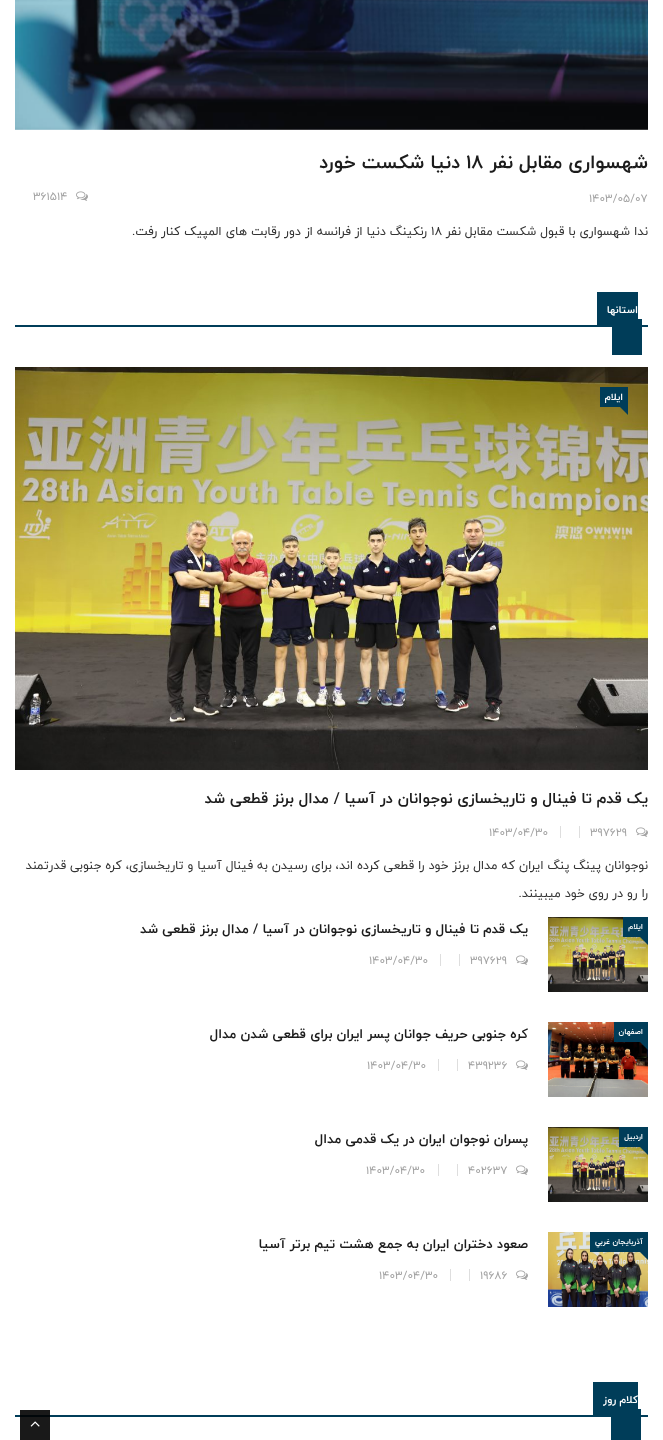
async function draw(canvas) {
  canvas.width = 663
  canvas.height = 1440
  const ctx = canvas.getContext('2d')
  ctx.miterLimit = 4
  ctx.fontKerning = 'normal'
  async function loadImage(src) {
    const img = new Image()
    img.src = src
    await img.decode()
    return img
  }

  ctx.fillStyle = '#fff'
  ctx.fillRect(0, 0, 663, 1440)
  ctx.fillStyle = '#191919'
  ctx.fillRect(20, 1410, 30, 30)
  ctx.drawImage(await loadImage('image0.png'), 15, 0, 633, 130)
  ctx.direction = 'rtl'
  ctx.font = 'bold 20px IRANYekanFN'
  ctx.fillStyle = '#1c1c1c'
  ctx.fillText('شهسواری مقابل نفر', 648, 168)
  ctx.direction = 'ltr'
  ctx.fillText('۱۸', 466, 168)
  ctx.direction = 'rtl'
  ctx.fillText('دنیا شکست خورد', 460, 168)
  ctx.direction = 'ltr'
  ctx.font = '12px IRANYekanFN'
  ctx.fillStyle = '#a3a3a3'
  ctx.fillText('1403/05/07', 589, 202)
  ctx.drawImage(await loadImage('image1.png'), 76, 191, 12, 10)
  ctx.fillText('361514', 33, 200)
  ctx.direction = 'rtl'
  ctx.font = '13px IRANYekanFN'
  ctx.fillStyle = '#333'
  ctx.fillText('ندا شهسواری با قبول شکست مقابل نفر', 648, 235)
  ctx.direction = 'ltr'
  ctx.fillText('۱۸', 431, 235)
  ctx.direction = 'rtl'
  ctx.fillText('رنکینگ دنیا از فرانسه از دور رقابت های المپیک کنار رفت.', 427, 235)
  ctx.fillStyle = '#003d59'
  ctx.fillRect(15, 325, 633, 2)
  ctx.fillRect(597, 292, 41, 33)
  ctx.font = 'bold 11px IRANYekanFN'
  ctx.fillStyle = '#fff'
  ctx.fillText('استانها', 638, 313)
  ctx.fillStyle = '#003d59'
  ctx.fillRect(612, 319, 30, 36)
  ctx.drawImage(await loadImage('image2.png'), 15, 367, 633, 403)
  ctx.fillRect(600, 387, 28, 20)
  ctx.font = 'bold 10px IRANYekanFN'
  ctx.fillStyle = '#fff'
  ctx.fillText('ايلام', 623, 400)
  ctx.fillStyle = '#003d59'
  ctx.beginPath()
  ctx.moveTo(620, 407)
  ctx.lineTo(628, 407)
  ctx.lineTo(628, 415)
  ctx.closePath()
  ctx.fill()
  ctx.font = 'bold 16px IRANYekanFN'
  ctx.fillStyle = '#1c1c1c'
  ctx.fillText('یک قدم تا فینال و تاریخسازی نوجوانان در آسیا / مدال برنز قطعی شد', 648, 803)
  ctx.fillStyle = '#dedede'
  ctx.fillRect(560, 826, 1, 12)
  ctx.drawImage(await loadImage('image1.png'), 636, 827, 12, 10)
  ctx.fillRect(579, 826, 1, 12)
  ctx.direction = 'ltr'
  ctx.font = '12px IRANYekanFN'
  ctx.fillStyle = '#a3a3a3'
  ctx.fillText('397629', 590, 836)
  ctx.fillText('1403/04/30', 489, 836)
  ctx.direction = 'rtl'
  ctx.font = '13px IRANYekanFN'
  ctx.fillStyle = '#333'
  ctx.fillText('نوجوانان پینگ پنگ ایران که مدال برنز خود را قطعی کرده اند، برای رسیدن به فینال آسیا و تاریخسازی، کره جنوبی قدرتمند', 648, 869)
  ctx.fillText('را رو در روی خود میبینند.', 648, 897)
  ctx.drawImage(await loadImage('image3.png'), 548, 917, 100, 75)
  ctx.fillStyle = '#003d59'
  ctx.fillRect(623, 917, 25, 20)
  ctx.font = 'bold 8px IRANYekanFN'
  ctx.fillStyle = '#fff'
  ctx.fillText('ايلام', 643, 929)
  ctx.fillStyle = '#003d59'
  ctx.beginPath()
  ctx.moveTo(640, 937)
  ctx.lineTo(648, 937)
  ctx.lineTo(648, 945)
  ctx.closePath()
  ctx.fill()
  ctx.font = 'bold 14px IRANYekanFN'
  ctx.fillStyle = '#1c1c1c'
  ctx.fillText('یک قدم تا فینال و تاریخسازی نوجوانان در آسیا / مدال برنز قطعی شد', 528, 933)
  ctx.fillStyle = '#dedede'
  ctx.fillRect(440, 954, 1, 12)
  ctx.drawImage(await loadImage('image1.png'), 516, 955, 12, 10)
  ctx.fillRect(459, 954, 1, 12)
  ctx.direction = 'ltr'
  ctx.font = '12px IRANYekanFN'
  ctx.fillStyle = '#a3a3a3'
  ctx.fillText('397629', 470, 964)
  ctx.fillText('1403/04/30', 369, 964)
  ctx.drawImage(await loadImage('image4.png'), 548, 1022, 100, 75)
  ctx.fillStyle = '#003d59'
  ctx.fillRect(614, 1022, 34, 20)
  ctx.direction = 'rtl'
  ctx.font = 'bold 8px IRANYekanFN'
  ctx.fillStyle = '#fff'
  ctx.fillText('اصفهان', 643, 1034)
  ctx.fillStyle = '#003d59'
  ctx.beginPath()
  ctx.moveTo(640, 1042)
  ctx.lineTo(648, 1042)
  ctx.lineTo(648, 1050)
  ctx.closePath()
  ctx.fill()
  ctx.font = 'bold 14px IRANYekanFN'
  ctx.fillStyle = '#1c1c1c'
  ctx.fillText('کره جنوبی حریف جوانان پسر ایران برای قطعی شدن مدال', 528, 1038)
  ctx.fillStyle = '#dedede'
  ctx.fillRect(438, 1059, 1, 12)
  ctx.drawImage(await loadImage('image1.png'), 516, 1060, 12, 10)
  ctx.fillRect(457, 1059, 1, 12)
  ctx.direction = 'ltr'
  ctx.font = '12px IRANYekanFN'
  ctx.fillStyle = '#a3a3a3'
  ctx.fillText('439236', 468, 1069)
  ctx.fillText('1403/04/30', 367, 1069)
  ctx.drawImage(await loadImage('image5.png'), 548, 1127, 100, 75)
  ctx.fillStyle = '#003d59'
  ctx.fillRect(619, 1127, 29, 20)
  ctx.direction = 'rtl'
  ctx.font = 'bold 8px IRANYekanFN'
  ctx.fillStyle = '#fff'
  ctx.fillText('اردبيل', 643, 1139)
  ctx.fillStyle = '#003d59'
  ctx.beginPath()
  ctx.moveTo(640, 1147)
  ctx.lineTo(648, 1147)
  ctx.lineTo(648, 1155)
  ctx.closePath()
  ctx.fill()
  ctx.font = 'bold 14px IRANYekanFN'
  ctx.fillStyle = '#1c1c1c'
  ctx.fillText('پسران نوجوان ایران در یک قدمی مدال', 528, 1143)
  ctx.fillStyle = '#dedede'
  ctx.fillRect(438, 1164, 1, 12)
  ctx.drawImage(await loadImage('image1.png'), 516, 1165, 12, 10)
  ctx.fillRect(457, 1164, 1, 12)
  ctx.direction = 'ltr'
  ctx.font = '12px IRANYekanFN'
  ctx.fillStyle = '#a3a3a3'
  ctx.fillText('402637', 468, 1174)
  ctx.fillText('1403/04/30', 366, 1174)
  ctx.drawImage(await loadImage('image6.png'), 548, 1232, 100, 75)
  ctx.fillStyle = '#003d59'
  ctx.fillRect(590, 1232, 58, 20)
  ctx.direction = 'rtl'
  ctx.font = 'bold 8px IRANYekanFN'
  ctx.fillStyle = '#fff'
  ctx.fillText('آذربايجان غربي', 643, 1244)
  ctx.fillStyle = '#003d59'
  ctx.beginPath()
  ctx.moveTo(640, 1252)
  ctx.lineTo(648, 1252)
  ctx.lineTo(648, 1260)
  ctx.closePath()
  ctx.fill()
  ctx.font = 'bold 14px IRANYekanFN'
  ctx.fillStyle = '#1c1c1c'
  ctx.fillText('صعود دختران ایران به جمع هشت تیم برتر آسیا', 528, 1248)
  ctx.fillStyle = '#dedede'
  ctx.fillRect(450, 1269, 1, 12)
  ctx.drawImage(await loadImage('image1.png'), 516, 1270, 12, 10)
  ctx.fillRect(469, 1269, 1, 12)
  ctx.direction = 'ltr'
  ctx.font = '12px IRANYekanFN'
  ctx.fillStyle = '#a3a3a3'
  ctx.fillText('19686', 480, 1279)
  ctx.fillText('1403/04/30', 379, 1279)
  ctx.fillStyle = '#003d59'
  ctx.fillRect(15, 1415, 633, 2)
  ctx.fillStyle = '#000609'
  ctx.fillRect(20, 1415, 30, 2)
  ctx.fillStyle = '#003d59'
  ctx.fillRect(593, 1382, 45, 33)
  ctx.direction = 'rtl'
  ctx.font = 'bold 11px IRANYekanFN'
  ctx.fillStyle = '#fff'
  ctx.fillText('کلام روز', 638, 1403)
  ctx.fillStyle = '#003d59'
  ctx.fillRect(611, 1409, 30, 31)
  ctx.drawImage(await loadImage('image7.png'), 30, 1421, 10, 6)
}

draw(document.querySelector('canvas'))
